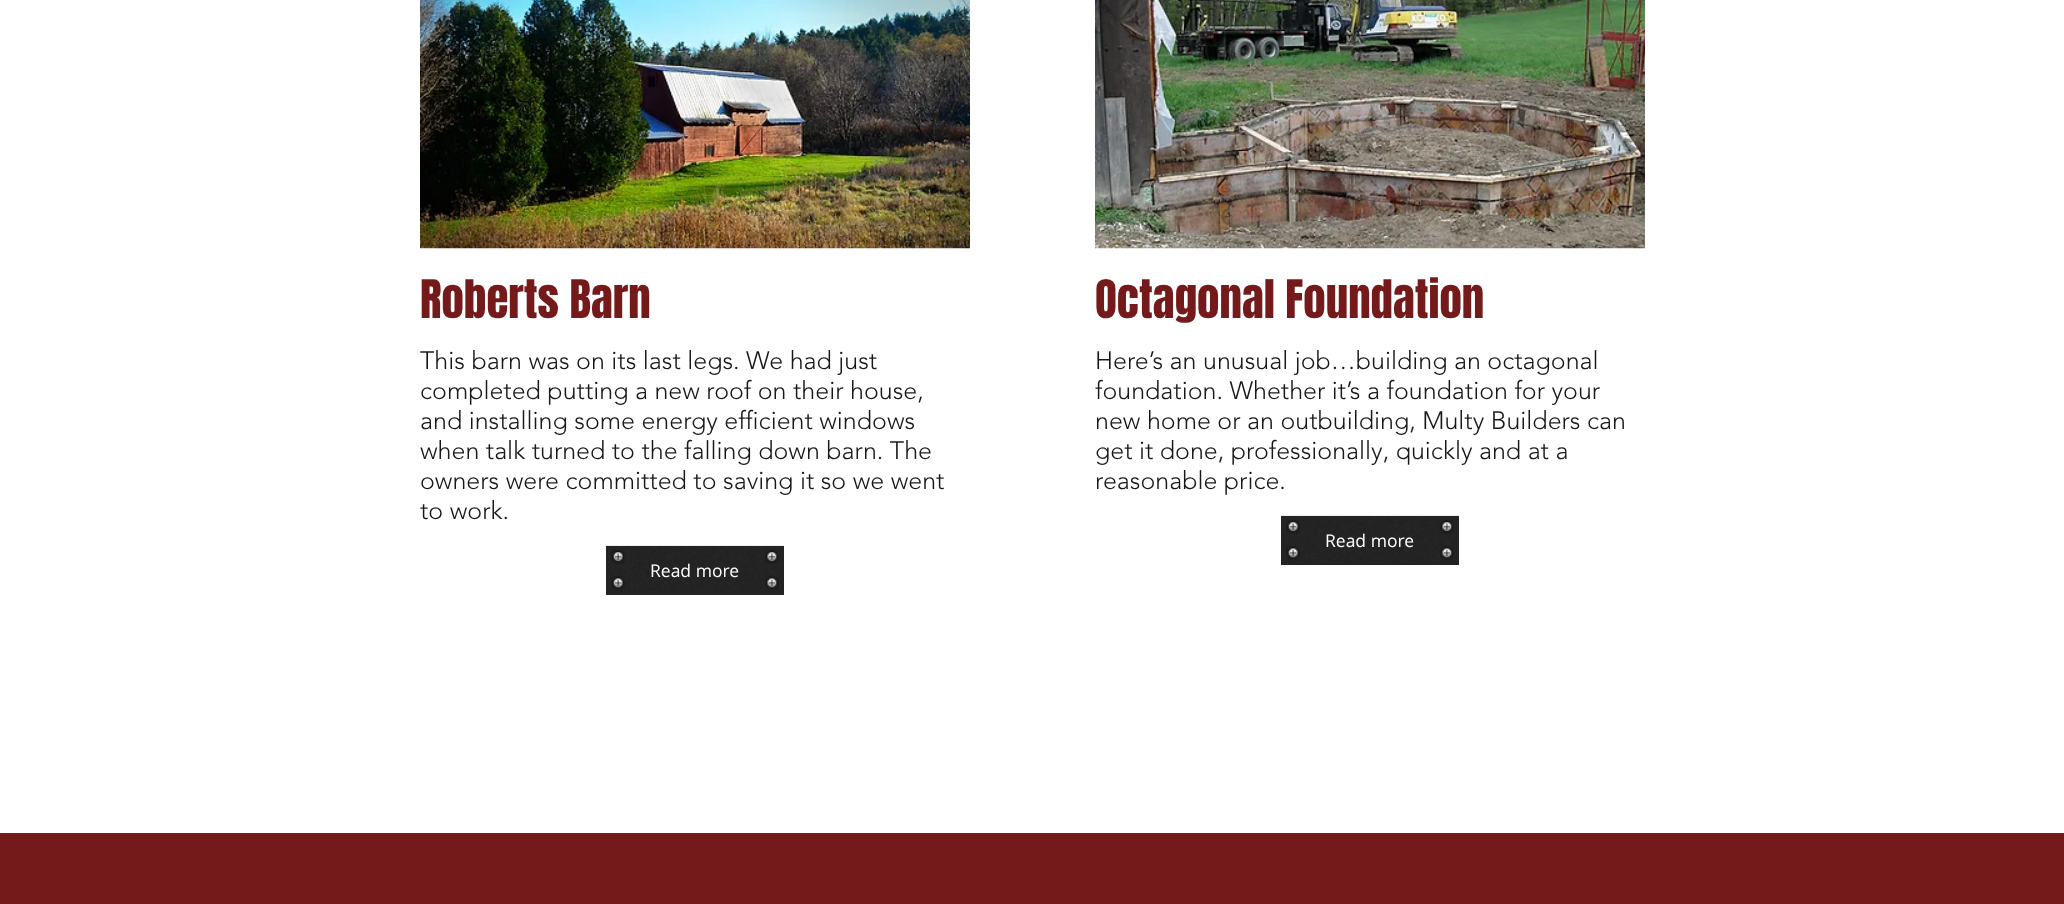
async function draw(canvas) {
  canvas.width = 2064
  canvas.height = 904
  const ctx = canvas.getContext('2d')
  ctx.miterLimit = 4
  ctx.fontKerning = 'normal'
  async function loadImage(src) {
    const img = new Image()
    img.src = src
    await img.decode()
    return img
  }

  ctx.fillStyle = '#fff'
  ctx.fillRect(0, 0, 2064, 904)
  ctx.drawImage(await loadImage('image0.png'), 420, 0, 550, 249)
  ctx.font = '45px Anton'
  ctx.fillStyle = '#741a1a'
  ctx.fillText('Roberts Barn', 420, 318)
  ctx.font = '300 25px "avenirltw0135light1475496"'
  ctx.fillStyle = '#181818'
  ctx.fillText('This barn was on its last legs. We had just', 420, 369)
  ctx.fillText('completed putting a new roof on their house,', 420, 399)
  ctx.fillText('and installing some energy efficient windows', 420, 429)
  ctx.fillText('when talk turned to the falling down barn. The', 420, 459)
  ctx.fillText('owners were committed to saving it so we went', 420, 489)
  ctx.fillText('to work.', 420, 519)
  ctx.fillStyle = '#232323'
  ctx.fillRect(606, 545, 178, 50)
  ctx.drawImage(await loadImage('image1.png'), 608, 545, 173, 47)
  ctx.fillStyle = '#ffffffeb'
  ctx.fillRect(606, 545, 178, 1)
  ctx.drawImage(await loadImage('image2.png'), 611, 550, 14, 14)
  ctx.drawImage(await loadImage('image3.png'), 765, 550, 14, 14)
  ctx.font = '17.5px Open Sans'
  ctx.fillStyle = '#fff'
  ctx.fillText('Read more', 650, 577)
  ctx.drawImage(await loadImage('image4.png'), 611, 576, 14, 14)
  ctx.drawImage(await loadImage('image5.png'), 765, 576, 14, 14)
  ctx.drawImage(await loadImage('image6.png'), 1095, 0, 550, 249)
  ctx.font = '45px Anton'
  ctx.fillStyle = '#741a1a'
  ctx.fillText('Octagonal Foundation', 1095, 318)
  ctx.font = '300 25px "avenirltw0135light1475496"'
  ctx.fillStyle = '#181818'
  ctx.fillText('Here’s an unusual job…building an octagonal', 1095, 369)
  ctx.fillText('foundation. Whether it’s a foundation for your', 1095, 399)
  ctx.fillText('new home or an outbuilding, Multy Builders can', 1095, 429)
  ctx.fillText('get it done, professionally, quickly and at a', 1095, 459)
  ctx.fillText('reasonable price.', 1095, 489)
  ctx.fillStyle = '#232323'
  ctx.fillRect(1281, 515, 178, 50)
  ctx.drawImage(await loadImage('image7.png'), 1283, 515, 173, 47)
  ctx.fillStyle = '#ffffffeb'
  ctx.fillRect(1281, 515, 178, 1)
  ctx.drawImage(await loadImage('image2.png'), 1286, 520, 14, 14)
  ctx.drawImage(await loadImage('image8.png'), 1440, 520, 14, 14)
  ctx.font = '17.5px Open Sans'
  ctx.fillStyle = '#fff'
  ctx.fillText('Read more', 1325, 547)
  ctx.drawImage(await loadImage('image4.png'), 1286, 546, 14, 14)
  ctx.drawImage(await loadImage('image9.png'), 1440, 546, 14, 14)
  ctx.fillStyle = '#741a1a'
  ctx.fillRect(0, 833, 2064, 71)
}

draw(document.querySelector('canvas'))
